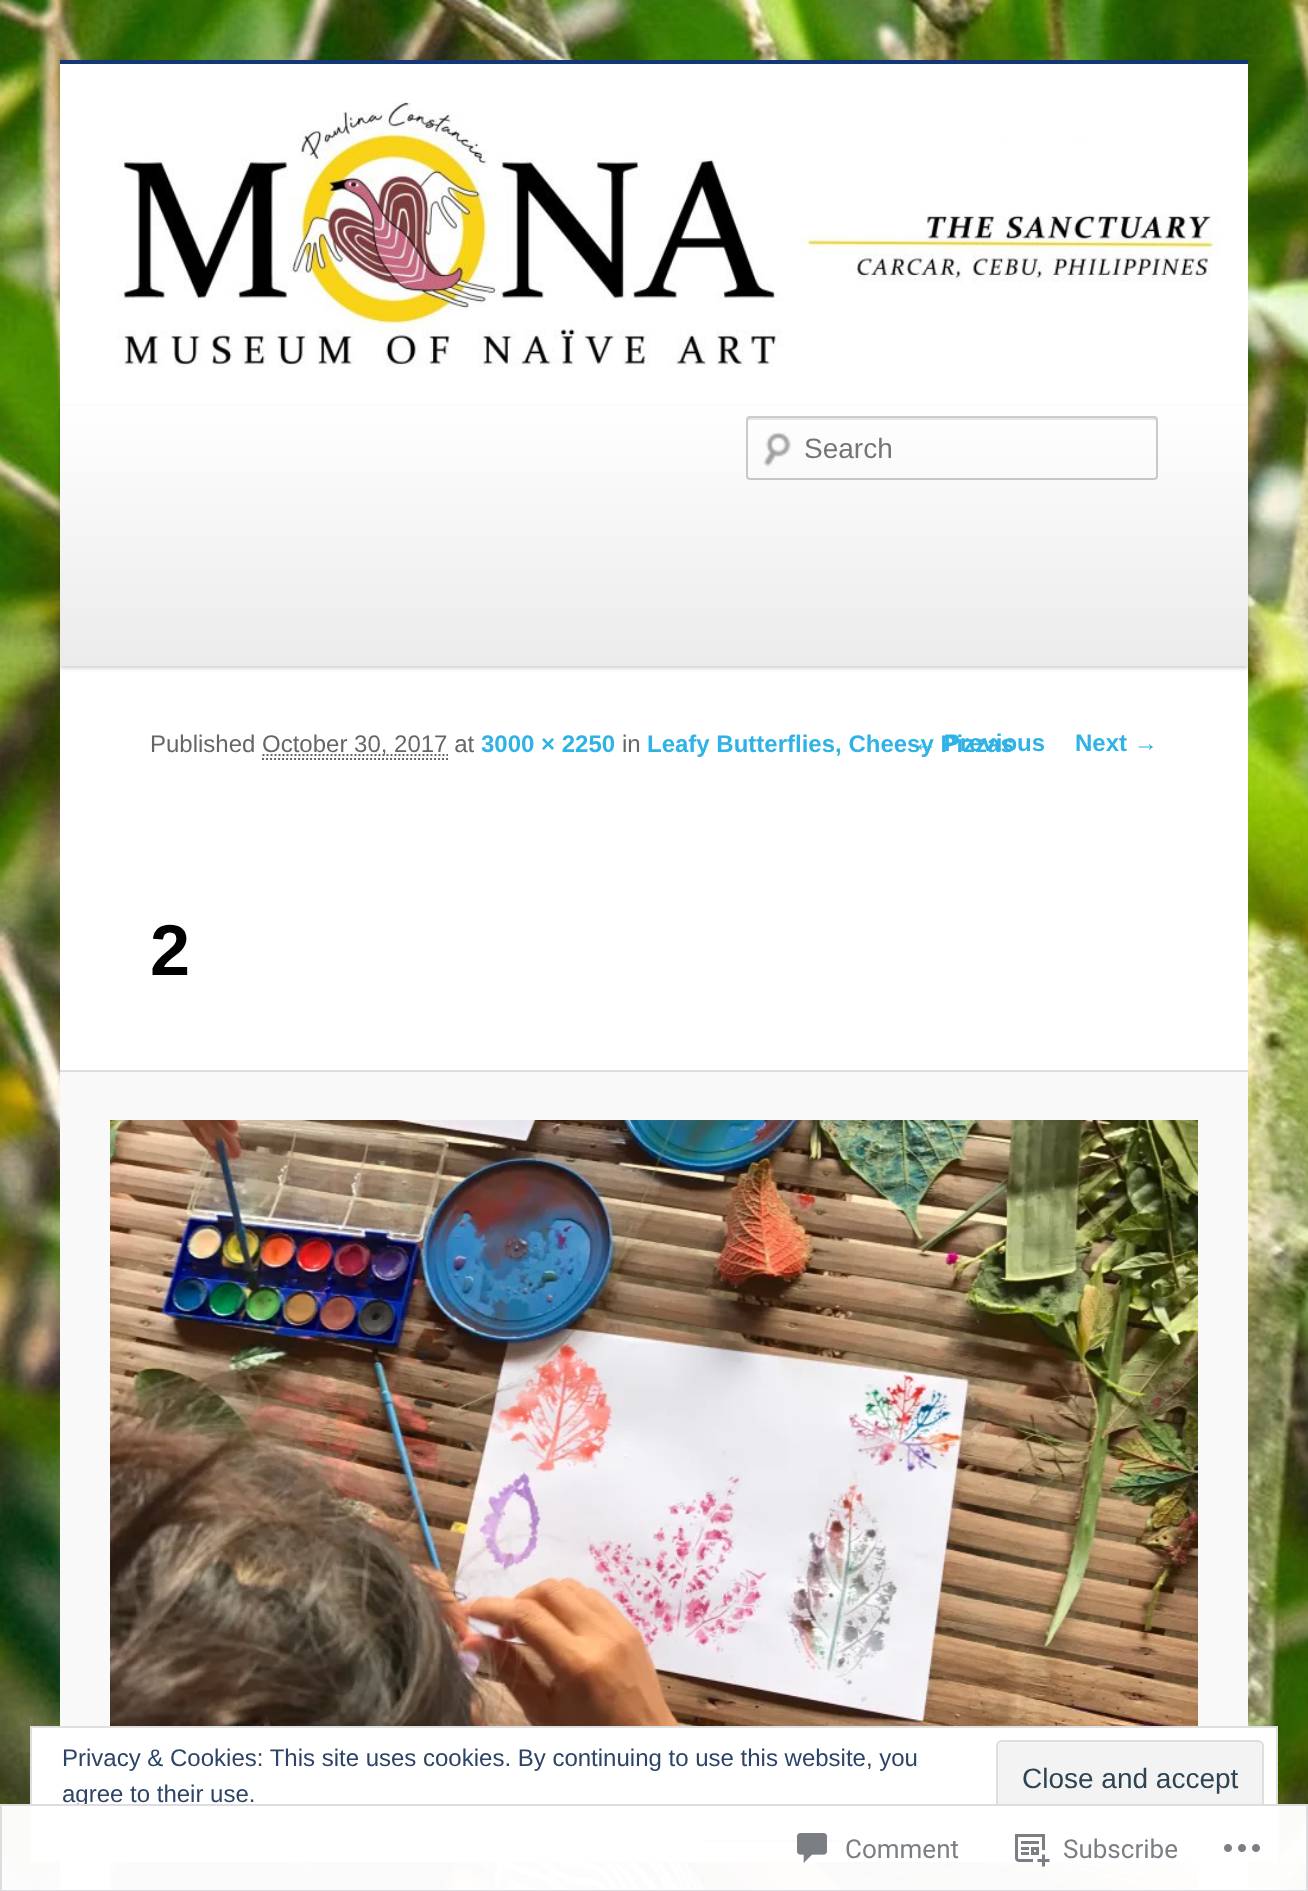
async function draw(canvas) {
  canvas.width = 1308
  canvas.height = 1891
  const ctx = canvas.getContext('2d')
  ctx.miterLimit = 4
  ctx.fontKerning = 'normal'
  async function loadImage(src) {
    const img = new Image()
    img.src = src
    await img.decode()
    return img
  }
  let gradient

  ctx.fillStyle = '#fff'
  ctx.fillRect(0, 0, 1308, 1891)
  ctx.drawImage(await loadImage('image0.png'), 0, 0, 1308, 1891)
  ctx.fillRect(60, 64, 1188, 1006)
  ctx.fillStyle = '#143775'
  ctx.fillRect(60, 60, 1188, 4)
  ctx.drawImage(await loadImage('image1.png'), 117, 102, 1103, 265)
  ctx.fillStyle = '#00000033'
  ctx.filter = 'blur(2px)'
  ctx.beginPath()
  ctx.rect(60, 408, 1188, 260)
  ctx.fill()
  ctx.filter = 'none'
  gradient = ctx.createLinearGradient(654, 406, 654, 666)
  gradient.addColorStop(0, '#fff')
  gradient.addColorStop(1, '#ebebeb')
  ctx.fillStyle = gradient
  ctx.fillRect(60, 406, 1188, 260)
  ctx.drawImage(await loadImage('image2.png'), 763, 432, 28, 35)
  ctx.fillStyle = '#e5e5e5'
  ctx.beginPath()
  ctx.moveTo(750, 420)
  ctx.lineTo(1154, 420)
  ctx.bezierCurveTo(1155, 420, 1156, 421, 1156, 422)
  ctx.bezierCurveTo(1156, 420, 1156, 418, 1154, 418)
  ctx.lineTo(750, 418)
  ctx.lineTo(748, 419)
  ctx.lineTo(748, 422)
  ctx.bezierCurveTo(748, 421, 749, 420, 750, 420)
  ctx.closePath()
  ctx.fill()
  ctx.beginPath()
  ctx.roundRect(747, 417, 410, 62, 3)
  ctx.strokeStyle = '#00000033'
  ctx.lineWidth = 2
  ctx.stroke()
  ctx.font = '28px Liberation Sans'
  ctx.fillStyle = '#757575'
  ctx.fillText('Search', 804, 458)
  ctx.font = '24px Liberation Sans'
  ctx.fillStyle = '#666'
  ctx.fillText('Published', 150, 752)
  ctx.beginPath()
  ctx.moveTo(262.5, 755)
  ctx.lineTo(448, 755)
  ctx.strokeStyle = '#666'
  ctx.setLineDash([2, 2])
  ctx.stroke()
  ctx.fillText('October 30, 2017 at', 262, 752)
  ctx.beginPath()
  ctx.moveTo(262, 759)
  ctx.lineTo(448, 759)
  ctx.stroke()
  ctx.font = 'bold 24px Liberation Sans'
  ctx.fillStyle = '#2fb2e6'
  ctx.fillText('3000 × 2250', 481, 752)
  ctx.font = '24px Liberation Sans'
  ctx.fillStyle = '#666'
  ctx.fillText('in', 622, 752)
  ctx.font = 'bold 24px Liberation Sans'
  ctx.fillStyle = '#2fb2e6'
  ctx.fillText('← Previous', 913, 751)
  ctx.fillText('Leafy Butterflies, Cheesy Pizzas', 647, 752)
  ctx.font = 'bold 72px Liberation Sans'
  ctx.fillStyle = '#000'
  ctx.fillText('2', 150, 975)
  ctx.fillStyle = '#f9f9f9'
  ctx.fillRect(60, 1072, 1188, 819)
  ctx.fillStyle = '#ddd'
  ctx.fillRect(60, 1070, 1188, 2)
  ctx.drawImage(await loadImage('image3.png'), 110, 1120, 1088, 771)
  ctx.font = 'bold 24px Liberation Sans'
  ctx.fillStyle = '#2fb2e6'
  ctx.fillText('Next →', 1075, 751)
  ctx.fillStyle = '#fff'
  ctx.beginPath()
  ctx.rect(31, 1727, 1246, 134)
  ctx.fill()
  ctx.strokeStyle = '#dedede'
  ctx.setLineDash([])
  ctx.stroke()
  ctx.font = '24px Liberation Sans'
  ctx.fillStyle = '#2e4467'
  ctx.fillText('Privacy & Cookies: This site uses cookies. By continuing to use this website, you', 62, 1766)
  ctx.fillText('agree to their use.', 62, 1802)
  ctx.fillStyle = '#f3f3f3'
  ctx.beginPath()
  ctx.roundRect(997, 1741, 266, 76, 5)
  ctx.fill()
  ctx.stroke()
  ctx.font = '28px Liberation Sans'
  ctx.fillStyle = '#2e4453'
  ctx.fillText('Close and accept', 1022, 1788)
  ctx.fillStyle = '#2e4467'
  ctx.fillRect(706, 1840, 158, 2)
  ctx.fillStyle = '#fffffffa'
  ctx.fillRect(0, 1804, 1308, 87)
  ctx.strokeStyle = '#dcdcdefa'
  ctx.strokeRect(1, 1805, 1306, 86)
  ctx.drawImage(await loadImage('image4.png'), 797, 1833, 30, 30)
  ctx.font = '26px Roboto'
  ctx.fillStyle = '#7b7f84'
  ctx.fillText('Comment', 845, 1858)
  ctx.drawImage(await loadImage('image5.png'), 1015, 1834, 35, 33)
  ctx.fillText('Subscribe', 1063, 1858)
  ctx.drawImage(await loadImage('image6.png'), 1224, 1844, 36, 8)
}

draw(document.querySelector('canvas'))
